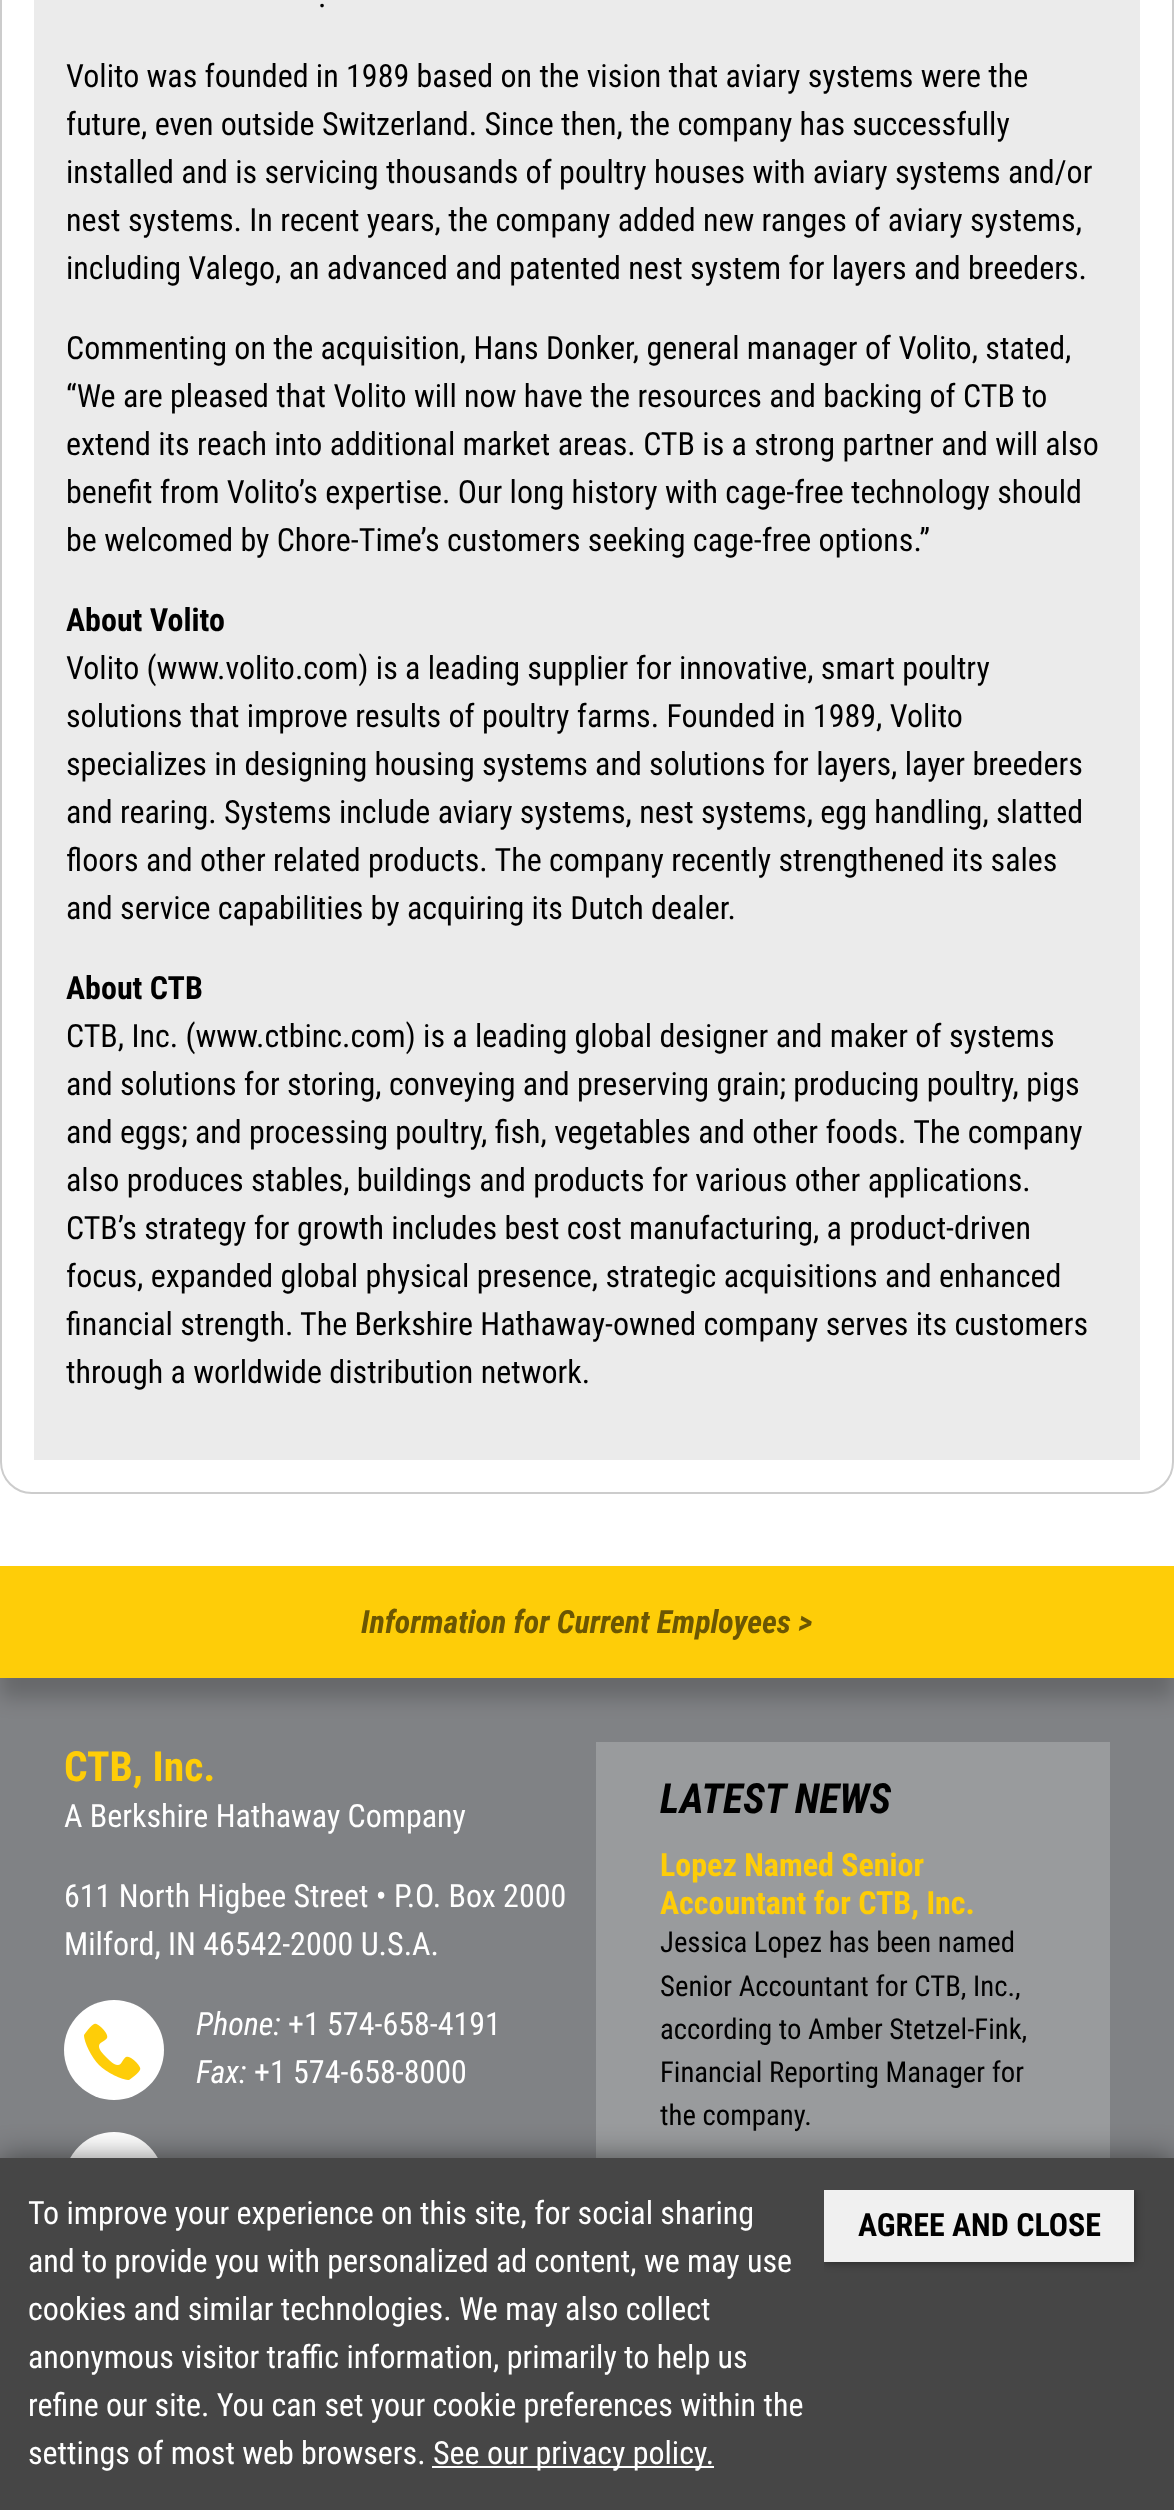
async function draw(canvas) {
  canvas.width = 1174
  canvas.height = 2510
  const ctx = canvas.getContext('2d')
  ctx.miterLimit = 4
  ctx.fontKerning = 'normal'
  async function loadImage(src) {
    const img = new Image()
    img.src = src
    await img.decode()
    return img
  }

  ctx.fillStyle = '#fff'
  ctx.fillRect(0, 0, 1174, 2510)
  ctx.beginPath()
  ctx.roundRect(1, -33, 1172, 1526, 31)
  ctx.strokeStyle = '#ccc'
  ctx.lineWidth = 2
  ctx.stroke()
  ctx.fillStyle = '#ebebeb'
  ctx.fillRect(34, 0, 1106, 1460)
  ctx.font = '32px Roboto Condensed'
  ctx.fillStyle = '#000'
  ctx.fillText('.', 318, 7)
  ctx.fillText('Volito was founded in 1989 based on the vision that aviary systems were the', 66, 87)
  ctx.fillText('future, even outside Switzerland. Since then, the company has successfully', 66, 135)
  ctx.fillText('installed and is servicing thousands of poultry houses with aviary systems and/or', 66, 183)
  ctx.fillText('nest systems. In recent years, the company added new ranges of aviary systems,', 66, 231)
  ctx.fillText('including Valego, an advanced and patented nest system for layers and breeders.', 66, 279)
  ctx.fillText('Commenting on the acquisition, Hans Donker, general manager of Volito, stated,', 66, 359)
  ctx.fillText('“We are pleased that Volito will now have the resources and backing of CTB to', 66, 407)
  ctx.fillText('extend its reach into additional market areas. CTB is a strong partner and will also', 66, 455)
  ctx.fillText('benefit from Volito’s expertise. Our long history with cage-free technology should', 66, 503)
  ctx.fillText('be welcomed by Chore-Time’s customers seeking cage-free options.”', 66, 551)
  ctx.font = 'bold 32px Roboto Condensed'
  ctx.fillText('About Volito', 66, 631)
  ctx.font = '32px Roboto Condensed'
  ctx.fillText('Volito (www.volito.com) is a leading supplier for innovative, smart poultry', 66, 679)
  ctx.fillText('solutions that improve results of poultry farms. Founded in 1989, Volito', 66, 727)
  ctx.fillText('specializes in designing housing systems and solutions for layers, layer breeders', 66, 775)
  ctx.fillText('and rearing. Systems include aviary systems, nest systems, egg handling, slatted', 66, 823)
  ctx.fillText('floors and other related products. The company recently strengthened its sales', 66, 871)
  ctx.fillText('and service capabilities by acquiring its Dutch dealer.', 66, 919)
  ctx.font = 'bold 32px Roboto Condensed'
  ctx.fillText('About CTB', 66, 999)
  ctx.font = '32px Roboto Condensed'
  ctx.fillText('CTB, Inc. (www.ctbinc.com) is a leading global designer and maker of systems', 66, 1047)
  ctx.fillText('and solutions for storing, conveying and preserving grain; producing poultry, pigs', 66, 1095)
  ctx.fillText('and eggs; and processing poultry, fish, vegetables and other foods. The company', 66, 1143)
  ctx.fillText('also produces stables, buildings and products for various other applications.', 66, 1191)
  ctx.fillText('CTB’s strategy for growth includes best cost manufacturing, a product-driven', 66, 1239)
  ctx.fillText('focus, expanded global physical presence, strategic acquisitions and enhanced', 66, 1287)
  ctx.fillText('financial strength. The Berkshire Hathaway-owned company serves its customers', 66, 1335)
  ctx.fillText('through a worldwide distribution network.', 66, 1383)
  ctx.fillStyle = '#808285'
  ctx.fillRect(0, 1678, 1174, 480)
  ctx.fillStyle = '#00000033'
  ctx.filter = 'blur(10px)'
  ctx.beginPath()
  ctx.rect(0, 1586, 1174, 112)
  ctx.fill()
  ctx.filter = 'none'
  ctx.fillStyle = '#fecd08'
  ctx.fillRect(0, 1566, 1174, 112)
  ctx.font = 'italic bold 32px Roboto Condensed'
  ctx.fillStyle = '#6b5603'
  ctx.fillText('Information for Current Employees >', 361, 1633)
  ctx.font = 'bold 41.5px Roboto Condensed'
  ctx.fillStyle = '#fecd08'
  ctx.fillText('CTB, Inc.', 64, 1781)
  ctx.font = '32px Roboto Condensed'
  ctx.fillStyle = '#fff'
  ctx.fillText('A Berkshire Hathaway Company', 64, 1827)
  ctx.fillText('611 North Higbee Street • P.O. Box 2000', 64, 1907)
  ctx.fillText('Milford, IN 46542-2000 U.S.A.', 64, 1955)
  ctx.beginPath()
  ctx.arc(114, 2050, 50, 0, 2 * Math.PI)
  ctx.fill()
  ctx.drawImage(await loadImage('image0.png'), 84, 2023, 57, 57)
  ctx.font = 'italic 32px Roboto Condensed'
  ctx.fillText('Phone:', 196, 2035)
  ctx.font = '32px Roboto Condensed'
  ctx.fillText('+1 574-658-4191', 288, 2035)
  ctx.font = 'italic 32px Roboto Condensed'
  ctx.fillText('Fax:', 196, 2083)
  ctx.font = '32px Roboto Condensed'
  ctx.fillText('+1 574-658-8000', 254, 2083)
  ctx.beginPath()
  ctx.arc(114, 2182, 50, 0, 2 * Math.PI)
  ctx.fill()
  ctx.fillStyle = '#999b9d'
  ctx.fillRect(596, 1742, 514, 416)
  ctx.font = 'italic bold 41.5px Roboto Condensed'
  ctx.fillStyle = '#000'
  ctx.fillText('LATEST NEWS', 660, 1813)
  ctx.font = 'bold 32px Roboto Condensed'
  ctx.fillStyle = '#fecd08'
  ctx.fillText('Lopez Named Senior', 660, 1876)
  ctx.fillText('Accountant for CTB, Inc.', 660, 1914)
  ctx.font = '28.75px Roboto Condensed'
  ctx.fillStyle = '#000'
  ctx.fillText('Jessica Lopez has been named', 660, 1952)
  ctx.fillText('Senior Accountant for CTB, Inc.,', 660, 1996)
  ctx.fillText('according to Amber Stetzel-Fink,', 660, 2039)
  ctx.fillText('Financial Reporting Manager for', 660, 2082)
  ctx.fillText('the company.', 660, 2125)
  ctx.fillStyle = '#00000080'
  ctx.filter = 'blur(15px)'
  ctx.beginPath()
  ctx.rect(0, 2158, 1174, 352)
  ctx.fill()
  ctx.filter = 'none'
  ctx.fillStyle = '#464646'
  ctx.fillRect(0, 2158, 1174, 352)
  ctx.font = '32px Roboto Condensed'
  ctx.fillStyle = '#fff'
  ctx.fillText('To improve your experience on this site, for social sharing', 28, 2224)
  ctx.fillText('and to provide you with personalized ad content, we may use', 28, 2272)
  ctx.fillText('cookies and similar technologies. We may also collect', 28, 2320)
  ctx.fillText('anonymous visitor traffic information, primarily to help us', 28, 2368)
  ctx.fillText('refine our site. You can set your cookie preferences within the', 28, 2416)
  ctx.fillText('settings of most web browsers.', 28, 2464)
  ctx.fillRect(432, 2466, 282, 2)
  ctx.fillText('See our privacy policy.', 433, 2464)
  ctx.save()
  ctx.beginPath()
  ctx.rect(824, 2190, 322, 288)
  ctx.clip()
  ctx.fillStyle = '#00000080'
  ctx.filter = 'blur(5px)'
  ctx.beginPath()
  ctx.rect(824, 2190, 310, 72)
  ctx.fill()
  ctx.filter = 'none'
  ctx.restore()
  ctx.fillStyle = '#f0f0f0'
  ctx.fillRect(824, 2190, 310, 72)
  ctx.font = 'bold 32px Roboto Condensed'
  ctx.fillStyle = '#000'
  ctx.fillText('AGREE AND CLOSE', 858, 2236)
}

draw(document.querySelector('canvas'))
